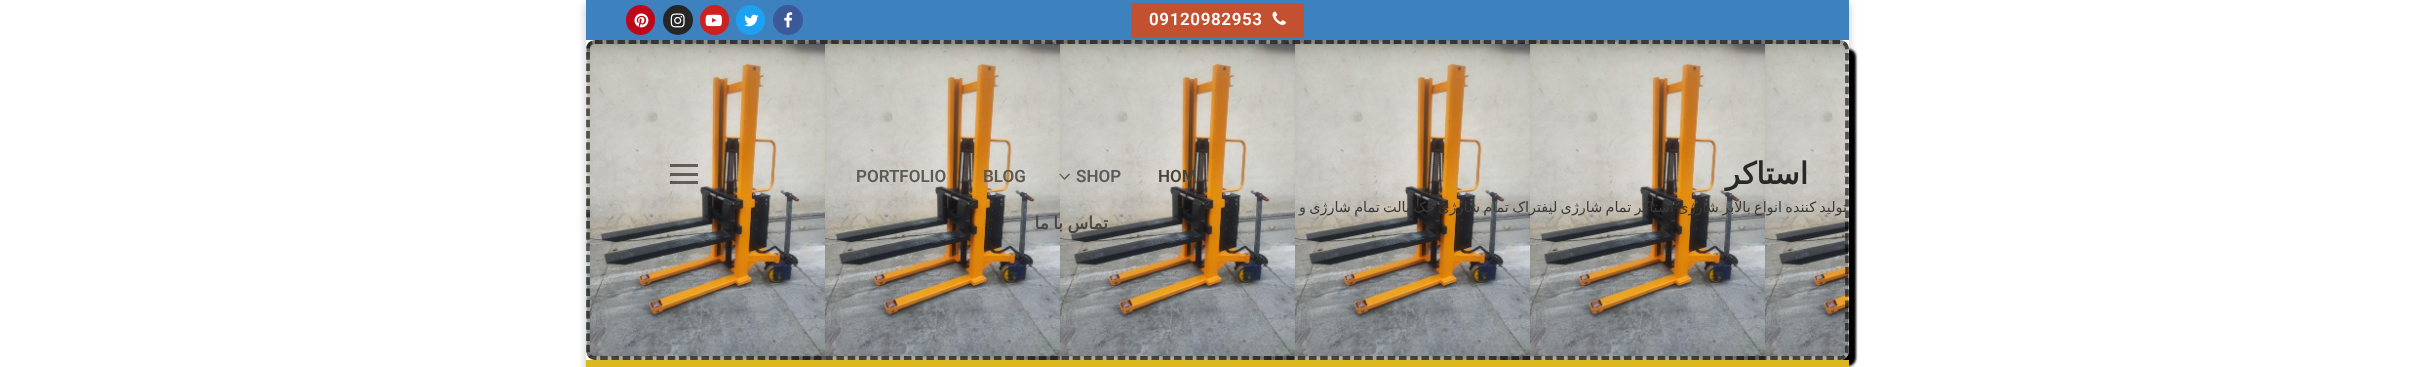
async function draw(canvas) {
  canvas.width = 2434
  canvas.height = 367
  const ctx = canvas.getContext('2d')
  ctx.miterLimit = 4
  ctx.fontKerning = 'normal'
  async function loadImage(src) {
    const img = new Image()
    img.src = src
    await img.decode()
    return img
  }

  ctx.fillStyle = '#fff'
  ctx.fillRect(0, 0, 2434, 367)
  ctx.save()
  ctx.beginPath()
  ctx.moveTo(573, 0)
  ctx.lineTo(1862, 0)
  ctx.lineTo(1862, 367)
  ctx.lineTo(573, 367)
  ctx.closePath()
  ctx.moveTo(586, 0)
  ctx.lineTo(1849, 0)
  ctx.lineTo(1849, 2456)
  ctx.lineTo(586, 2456)
  ctx.closePath()
  ctx.clip('evenodd')
  ctx.fillStyle = '#0000003b'
  ctx.filter = 'blur(4px)'
  ctx.beginPath()
  ctx.rect(586, 4, 1263, 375)
  ctx.fill()
  ctx.filter = 'none'
  ctx.restore()
  ctx.fillStyle = '#3d82bf'
  ctx.fillRect(586, 0, 1263, 40)
  ctx.fillStyle = '#c3512f'
  ctx.beginPath()
  ctx.roundRect(1131, 3, 173, 35, 2.5)
  ctx.fill()
  ctx.drawImage(await loadImage('image0.png'), 1272, 11, 14, 14)
  ctx.letterSpacing = '0.62px'
  ctx.font = '600 17px Roboto'
  ctx.fillStyle = '#fff'
  ctx.fillText('09120982953', 1149, 25)
  ctx.fillStyle = '#3b5998'
  ctx.beginPath()
  ctx.arc(788, 20, 15, 0, 2 * Math.PI)
  ctx.fill()
  ctx.drawImage(await loadImage('image1.png'), 784, 12, 9, 16)
  ctx.fillStyle = '#1da1f2'
  ctx.beginPath()
  ctx.roundRect(736, 5, 29, 30, 14.5)
  ctx.fill()
  ctx.drawImage(await loadImage('image2.png'), 744, 14, 15, 13)
  ctx.fillStyle = '#cd201f'
  ctx.beginPath()
  ctx.roundRect(700, 5, 29, 30, 14.5)
  ctx.fill()
  ctx.drawImage(await loadImage('image3.png'), 705, 14, 17, 13)
  ctx.fillStyle = '#262626'
  ctx.beginPath()
  ctx.arc(678, 20, 15, 0, 2 * Math.PI)
  ctx.fill()
  ctx.drawImage(await loadImage('image4.png'), 670, 13, 15, 15)
  ctx.fillStyle = '#bd081c'
  ctx.beginPath()
  ctx.roundRect(626, 5, 29, 30, 14.5)
  ctx.fill()
  ctx.drawImage(await loadImage('image5.png'), 634, 13, 15, 15)
  ctx.fillStyle = '#000'
  ctx.filter = 'blur(1px)'
  ctx.beginPath()
  ctx.roundRect(596, 49, 1260, 317, 8)
  ctx.fill()
  ctx.filter = 'none'
  ctx.fillStyle = '#fff'
  ctx.beginPath()
  ctx.roundRect(586, 40, 1263, 320, 9)
  ctx.fill()
  ctx.drawImage(await loadImage('image6.png'), 586, 40, 1263, 320)
  ctx.beginPath()
  ctx.moveTo(595, 42)
  ctx.lineTo(1840, 42)
  ctx.bezierCurveTo(1844, 42, 1847, 45, 1847, 49)
  ctx.lineTo(1847, 351)
  ctx.bezierCurveTo(1847, 355, 1844, 358, 1840, 358)
  ctx.lineTo(595, 358)
  ctx.bezierCurveTo(591, 358, 588, 355, 588, 351)
  ctx.lineTo(588, 49)
  ctx.bezierCurveTo(588, 45, 591, 42, 595, 42)
  ctx.closePath()
  ctx.strokeStyle = '#00000099'
  ctx.lineWidth = 3.8
  ctx.setLineDash([7.5, 3.75])
  ctx.stroke()
  ctx.letterSpacing = '0.5px'
  ctx.direction = 'rtl'
  ctx.font = 'bold 30px DejaVu Sans'
  ctx.fillStyle = '#282827'
  ctx.fillText('استاکر', 1808, 184)
  ctx.letterSpacing = '0.62px'
  ctx.wordSpacing = '-1.9px'
  ctx.font = '14.4px DejaVu Sans'
  ctx.fillStyle = '#3d3b37'
  ctx.fillText('تولید کننده انواع بالابر شارژی استاکر تمام شارژی لیفتراک تمام شارژی جک پالت تمام شارژی و', 1847, 212)
  ctx.letterSpacing = '0px'
  ctx.wordSpacing = '0px'
  ctx.direction = 'ltr'
  ctx.font = '600 17px Roboto'
  ctx.fillStyle = '#4b4238'
  ctx.fillText('HOM', 1158, 182)
  ctx.fillStyle = '#5a5a57'
  ctx.fillText('SHOP', 1076, 182)
  ctx.fillStyle = '#0000008c'
  ctx.beginPath()
  ctx.moveTo(1070, 174.5)
  ctx.lineTo(1064.5, 180)
  ctx.lineTo(1064.5, 178)
  ctx.lineTo(1069, 173.5)
  ctx.closePath()
  ctx.fill()
  ctx.beginPath()
  ctx.moveTo(1064.5, 180)
  ctx.lineTo(1059.5, 174.5)
  ctx.lineTo(1060, 173.5)
  ctx.lineTo(1064.5, 178)
  ctx.closePath()
  ctx.fill()
  ctx.fillStyle = '#5e584d'
  ctx.fillText('BLOG', 983, 182)
  ctx.fillStyle = '#5a5a57'
  ctx.fillText('PORTFOLIO', 856, 182)
  ctx.wordSpacing = '-1px'
  ctx.direction = 'rtl'
  ctx.font = 'bold 17px DejaVu Sans'
  ctx.fillStyle = '#4a4844'
  ctx.fillText('تماس با ما', 1108, 229)
  ctx.fillStyle = '#0000008c'
  ctx.fillRect(670, 173, 28, 3)
  ctx.fillRect(670, 164, 28, 3)
  ctx.fillRect(670, 181, 28, 3)
  ctx.fillStyle = '#dbb81e'
  ctx.fillRect(586, 360, 1263, 7)
}

draw(document.querySelector('canvas'))
